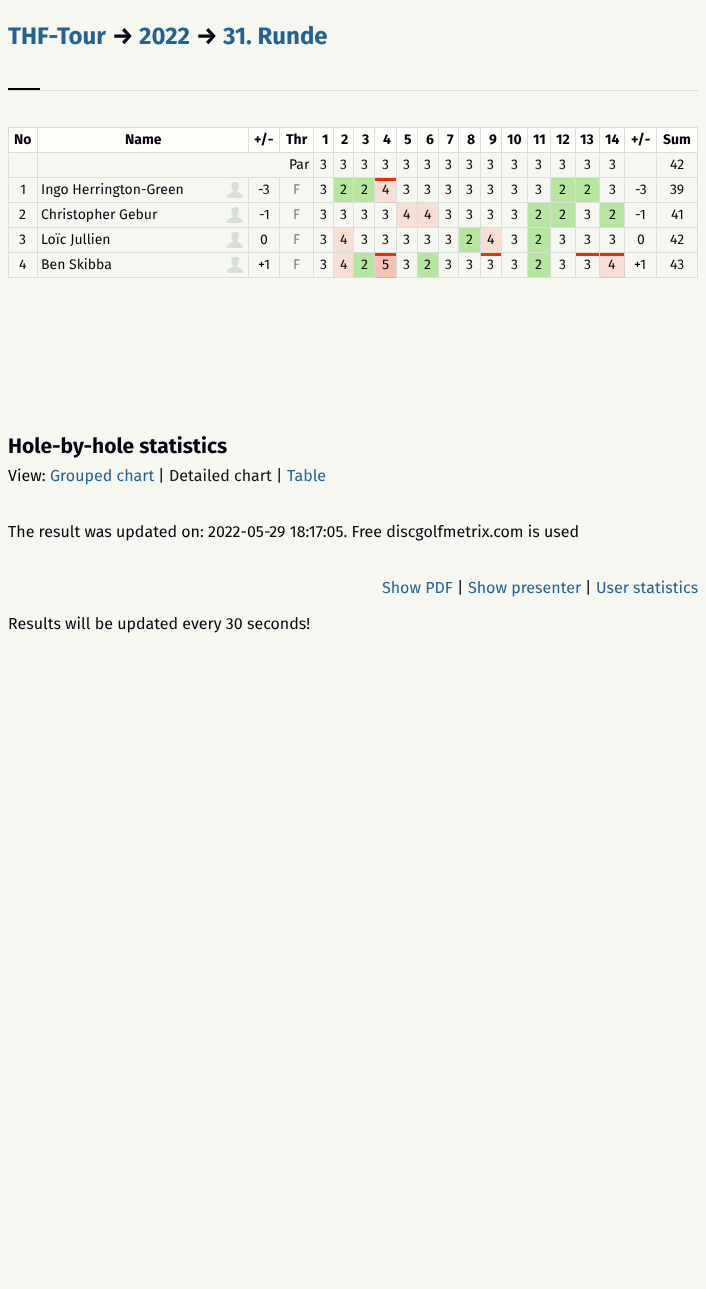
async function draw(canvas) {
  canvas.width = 706
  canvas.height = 1289
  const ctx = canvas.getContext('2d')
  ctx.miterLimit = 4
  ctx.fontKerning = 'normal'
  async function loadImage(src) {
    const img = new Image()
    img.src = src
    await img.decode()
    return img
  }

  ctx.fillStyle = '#f7f7f2'
  ctx.fillRect(0, 0, 706, 1289)
  ctx.fillStyle = '#f7dfd5'
  ctx.fillRect(600, 256, 24, 21)
  ctx.fillStyle = '#f6c2b4'
  ctx.fillRect(375, 256, 21, 21)
  ctx.fillStyle = '#f7dfd5'
  ctx.fillRect(375, 181, 21, 21)
  ctx.font = 'bold 24px Fira Sans'
  ctx.fillStyle = '#246291'
  ctx.fillText('THF-Tour', 8, 44)
  ctx.fillStyle = '#07020d'
  ctx.fillText('→', 112, 44)
  ctx.fillStyle = '#246291'
  ctx.fillText('2022', 139, 44)
  ctx.fillStyle = '#07020d'
  ctx.fillText('→', 196, 44)
  ctx.fillStyle = '#246291'
  ctx.fillText('31. Runde', 223, 44)
  ctx.fillStyle = '#d8dfdb'
  ctx.fillRect(8, 90, 690, 1)
  ctx.fillStyle = '#07020d'
  ctx.fillRect(8, 88, 32, 2)
  ctx.fillStyle = '#fffdf9'
  ctx.fillRect(9, 128, 688, 24)
  ctx.fillStyle = '#d8dfdb'
  ctx.fillRect(656, 127, 42, 1)
  ctx.fillRect(656, 152, 42, 1)
  ctx.fillRect(656, 177, 42, 1)
  ctx.fillRect(656, 202, 42, 1)
  ctx.fillRect(656, 227, 42, 1)
  ctx.fillRect(656, 252, 42, 1)
  ctx.fillRect(697, 252, 1, 26)
  ctx.fillRect(656, 277, 42, 1)
  ctx.fillRect(656, 252, 1, 26)
  ctx.fillRect(599, 252, 58, 1)
  ctx.fillRect(656, 227, 1, 26)
  ctx.fillRect(624, 227, 33, 1)
  ctx.fillRect(656, 202, 1, 26)
  ctx.fillRect(624, 202, 33, 1)
  ctx.fillRect(656, 177, 1, 26)
  ctx.fillRect(624, 177, 33, 1)
  ctx.fillRect(656, 152, 1, 26)
  ctx.fillRect(624, 152, 33, 1)
  ctx.fillRect(656, 127, 1, 26)
  ctx.fillRect(624, 127, 33, 1)
  ctx.fillRect(624, 227, 1, 26)
  ctx.fillRect(599, 227, 26, 1)
  ctx.fillRect(624, 202, 1, 26)
  ctx.fillRect(599, 202, 26, 1)
  ctx.fillRect(624, 177, 1, 26)
  ctx.fillRect(599, 177, 26, 1)
  ctx.fillRect(624, 152, 1, 26)
  ctx.fillRect(599, 152, 26, 1)
  ctx.fillRect(624, 127, 1, 26)
  ctx.fillRect(599, 127, 26, 1)
  ctx.fillRect(599, 252, 1, 26)
  ctx.fillRect(575, 252, 25, 1)
  ctx.fillRect(599, 227, 1, 26)
  ctx.fillRect(575, 227, 25, 1)
  ctx.fillRect(599, 202, 1, 26)
  ctx.fillRect(575, 202, 25, 1)
  ctx.fillRect(599, 177, 1, 26)
  ctx.fillRect(575, 177, 25, 1)
  ctx.fillRect(599, 152, 1, 26)
  ctx.fillRect(575, 152, 25, 1)
  ctx.fillRect(599, 127, 1, 26)
  ctx.fillRect(575, 127, 25, 1)
  ctx.fillRect(575, 277, 25, 1)
  ctx.fillRect(575, 252, 1, 26)
  ctx.fillRect(550, 252, 26, 1)
  ctx.fillRect(575, 227, 1, 26)
  ctx.fillRect(550, 227, 26, 1)
  ctx.fillRect(575, 202, 1, 26)
  ctx.fillRect(550, 202, 26, 1)
  ctx.fillRect(575, 177, 1, 26)
  ctx.fillRect(550, 177, 26, 1)
  ctx.fillRect(575, 152, 1, 26)
  ctx.fillRect(550, 152, 26, 1)
  ctx.fillRect(575, 127, 1, 26)
  ctx.fillRect(550, 127, 26, 1)
  ctx.fillRect(550, 277, 26, 1)
  ctx.fillRect(550, 252, 1, 26)
  ctx.fillRect(527, 252, 24, 1)
  ctx.fillRect(550, 227, 1, 26)
  ctx.fillRect(527, 227, 24, 1)
  ctx.fillRect(550, 202, 1, 26)
  ctx.fillRect(527, 202, 24, 1)
  ctx.fillRect(550, 177, 1, 26)
  ctx.fillRect(527, 177, 24, 1)
  ctx.fillRect(550, 152, 1, 26)
  ctx.fillRect(527, 152, 24, 1)
  ctx.fillRect(550, 127, 1, 26)
  ctx.fillRect(527, 127, 24, 1)
  ctx.fillRect(527, 277, 24, 1)
  ctx.fillRect(527, 252, 1, 26)
  ctx.fillRect(501, 252, 27, 1)
  ctx.fillRect(527, 227, 1, 26)
  ctx.fillRect(501, 227, 27, 1)
  ctx.fillRect(527, 202, 1, 26)
  ctx.fillRect(501, 202, 27, 1)
  ctx.fillRect(527, 177, 1, 26)
  ctx.fillRect(501, 177, 27, 1)
  ctx.fillRect(527, 152, 1, 26)
  ctx.fillRect(501, 152, 27, 1)
  ctx.fillRect(527, 127, 1, 26)
  ctx.fillRect(501, 127, 27, 1)
  ctx.fillRect(501, 277, 27, 1)
  ctx.fillRect(501, 252, 1, 26)
  ctx.fillRect(480, 252, 22, 1)
  ctx.fillRect(501, 227, 1, 26)
  ctx.fillRect(480, 227, 22, 1)
  ctx.fillRect(501, 202, 1, 26)
  ctx.fillRect(480, 202, 22, 1)
  ctx.fillRect(501, 177, 1, 26)
  ctx.fillRect(480, 177, 22, 1)
  ctx.fillRect(501, 152, 1, 26)
  ctx.fillRect(480, 152, 22, 1)
  ctx.fillRect(501, 127, 1, 26)
  ctx.fillRect(480, 127, 22, 1)
  ctx.fillRect(480, 277, 22, 1)
  ctx.fillRect(480, 252, 1, 26)
  ctx.fillRect(458, 252, 23, 1)
  ctx.fillRect(480, 227, 1, 26)
  ctx.fillRect(458, 227, 23, 1)
  ctx.fillRect(480, 202, 1, 26)
  ctx.fillRect(458, 202, 23, 1)
  ctx.fillRect(480, 177, 1, 26)
  ctx.fillRect(458, 177, 23, 1)
  ctx.fillRect(480, 152, 1, 26)
  ctx.fillRect(458, 152, 23, 1)
  ctx.fillRect(480, 127, 1, 26)
  ctx.fillRect(458, 127, 23, 1)
  ctx.fillRect(458, 277, 23, 1)
  ctx.fillRect(458, 252, 1, 26)
  ctx.fillRect(438, 252, 21, 1)
  ctx.fillRect(458, 227, 1, 26)
  ctx.fillRect(438, 227, 21, 1)
  ctx.fillRect(458, 202, 1, 26)
  ctx.fillRect(438, 202, 21, 1)
  ctx.fillRect(458, 177, 1, 26)
  ctx.fillRect(438, 177, 21, 1)
  ctx.fillRect(458, 152, 1, 26)
  ctx.fillRect(438, 152, 21, 1)
  ctx.fillRect(458, 127, 1, 26)
  ctx.fillRect(438, 127, 21, 1)
  ctx.fillRect(438, 277, 21, 1)
  ctx.fillRect(438, 252, 1, 26)
  ctx.fillRect(417, 252, 22, 1)
  ctx.fillRect(438, 227, 1, 26)
  ctx.fillRect(417, 227, 22, 1)
  ctx.fillRect(438, 202, 1, 26)
  ctx.fillRect(417, 202, 22, 1)
  ctx.fillRect(438, 177, 1, 26)
  ctx.fillRect(417, 177, 22, 1)
  ctx.fillRect(438, 152, 1, 26)
  ctx.fillRect(417, 152, 22, 1)
  ctx.fillRect(438, 127, 1, 26)
  ctx.fillRect(417, 127, 22, 1)
  ctx.fillRect(417, 277, 22, 1)
  ctx.fillRect(417, 252, 1, 26)
  ctx.fillRect(396, 252, 22, 1)
  ctx.fillRect(417, 227, 1, 26)
  ctx.fillRect(396, 227, 22, 1)
  ctx.fillRect(417, 202, 1, 26)
  ctx.fillRect(396, 202, 22, 1)
  ctx.fillRect(417, 177, 1, 26)
  ctx.fillRect(396, 177, 22, 1)
  ctx.fillRect(417, 152, 1, 26)
  ctx.fillRect(396, 152, 22, 1)
  ctx.fillRect(417, 127, 1, 26)
  ctx.fillRect(396, 127, 22, 1)
  ctx.fillRect(396, 277, 22, 1)
  ctx.fillRect(396, 252, 1, 26)
  ctx.fillRect(374, 252, 23, 1)
  ctx.fillRect(396, 227, 1, 26)
  ctx.fillRect(374, 227, 23, 1)
  ctx.fillRect(396, 202, 1, 26)
  ctx.fillRect(396, 177, 1, 26)
  ctx.fillRect(374, 177, 23, 1)
  ctx.fillRect(396, 152, 1, 26)
  ctx.fillRect(374, 152, 23, 1)
  ctx.fillRect(396, 127, 1, 26)
  ctx.fillRect(374, 127, 23, 1)
  ctx.fillRect(374, 252, 1, 26)
  ctx.fillRect(353, 252, 22, 1)
  ctx.fillRect(374, 227, 1, 26)
  ctx.fillRect(353, 227, 22, 1)
  ctx.fillRect(374, 202, 1, 26)
  ctx.fillRect(353, 202, 22, 1)
  ctx.fillRect(374, 177, 1, 26)
  ctx.fillRect(353, 177, 22, 1)
  ctx.fillRect(374, 152, 1, 26)
  ctx.fillRect(353, 152, 22, 1)
  ctx.fillRect(374, 127, 1, 26)
  ctx.fillRect(353, 127, 22, 1)
  ctx.fillRect(353, 277, 22, 1)
  ctx.fillRect(353, 252, 1, 26)
  ctx.fillRect(333, 252, 21, 1)
  ctx.fillRect(353, 227, 1, 26)
  ctx.fillRect(333, 227, 21, 1)
  ctx.fillRect(353, 202, 1, 26)
  ctx.fillRect(333, 202, 21, 1)
  ctx.fillRect(353, 177, 1, 26)
  ctx.fillRect(333, 177, 21, 1)
  ctx.fillRect(353, 152, 1, 26)
  ctx.fillRect(333, 152, 21, 1)
  ctx.fillRect(353, 127, 1, 26)
  ctx.fillRect(333, 127, 21, 1)
  ctx.fillRect(333, 277, 21, 1)
  ctx.fillRect(333, 252, 1, 26)
  ctx.fillRect(313, 252, 21, 1)
  ctx.fillRect(333, 227, 1, 26)
  ctx.fillRect(313, 227, 21, 1)
  ctx.fillRect(333, 202, 1, 26)
  ctx.fillRect(313, 202, 21, 1)
  ctx.fillRect(333, 177, 1, 26)
  ctx.fillRect(313, 177, 21, 1)
  ctx.fillRect(333, 152, 1, 26)
  ctx.fillRect(313, 152, 21, 1)
  ctx.fillRect(333, 127, 1, 26)
  ctx.fillRect(313, 127, 21, 1)
  ctx.fillRect(313, 277, 21, 1)
  ctx.fillRect(313, 252, 1, 26)
  ctx.fillRect(279, 252, 35, 1)
  ctx.fillRect(313, 227, 1, 26)
  ctx.fillRect(279, 227, 35, 1)
  ctx.fillRect(313, 202, 1, 26)
  ctx.fillRect(279, 202, 35, 1)
  ctx.fillRect(313, 177, 1, 26)
  ctx.fillRect(279, 177, 35, 1)
  ctx.fillRect(313, 152, 1, 26)
  ctx.fillRect(37, 152, 277, 1)
  ctx.fillRect(313, 127, 1, 26)
  ctx.fillRect(279, 127, 35, 1)
  ctx.fillRect(279, 127, 1, 26)
  ctx.fillRect(248, 127, 32, 1)
  ctx.fillRect(248, 127, 1, 26)
  ctx.fillRect(37, 127, 212, 1)
  ctx.fillRect(279, 277, 35, 1)
  ctx.fillRect(279, 252, 1, 26)
  ctx.fillRect(248, 252, 32, 1)
  ctx.fillRect(279, 227, 1, 26)
  ctx.fillRect(248, 227, 32, 1)
  ctx.fillRect(279, 202, 1, 26)
  ctx.fillRect(248, 202, 32, 1)
  ctx.fillRect(279, 177, 1, 26)
  ctx.fillRect(248, 177, 32, 1)
  ctx.fillRect(248, 277, 32, 1)
  ctx.fillRect(248, 252, 1, 26)
  ctx.fillRect(37, 252, 212, 1)
  ctx.fillRect(248, 227, 1, 26)
  ctx.fillRect(37, 227, 212, 1)
  ctx.fillRect(248, 202, 1, 26)
  ctx.fillRect(37, 202, 212, 1)
  ctx.fillRect(248, 177, 1, 26)
  ctx.fillRect(37, 177, 212, 1)
  ctx.fillRect(37, 277, 212, 1)
  ctx.fillRect(37, 252, 1, 26)
  ctx.fillRect(8, 252, 30, 1)
  ctx.fillRect(37, 227, 1, 26)
  ctx.fillRect(8, 227, 30, 1)
  ctx.fillRect(37, 202, 1, 26)
  ctx.fillRect(8, 202, 30, 1)
  ctx.fillRect(37, 177, 1, 26)
  ctx.fillRect(8, 177, 30, 1)
  ctx.fillRect(37, 152, 1, 26)
  ctx.fillRect(8, 152, 30, 1)
  ctx.fillRect(37, 127, 1, 26)
  ctx.fillRect(8, 127, 30, 1)
  ctx.fillRect(8, 277, 30, 1)
  ctx.fillRect(8, 252, 1, 26)
  ctx.fillRect(8, 227, 1, 26)
  ctx.fillRect(8, 202, 1, 26)
  ctx.fillRect(8, 177, 1, 26)
  ctx.fillRect(8, 152, 1, 26)
  ctx.fillRect(8, 127, 1, 26)
  ctx.font = 'bold 14px Fira Sans'
  ctx.fillStyle = '#07020d'
  ctx.fillText('No', 14, 144)
  ctx.fillText('Name', 125, 144)
  ctx.fillText('+/-', 254, 144)
  ctx.fillText('Thr', 286, 144)
  ctx.fillText('1', 322, 144)
  ctx.fillText('2', 341, 144)
  ctx.fillText('3', 362, 144)
  ctx.fillText('4', 383, 144)
  ctx.fillText('5', 404, 144)
  ctx.fillText('6', 426, 144)
  ctx.fillText('7', 447, 144)
  ctx.fillText('8', 467, 144)
  ctx.fillText('9', 489, 144)
  ctx.fillText('10', 507, 144)
  ctx.fillText('11', 533, 144)
  ctx.fillText('12', 556, 144)
  ctx.fillText('13', 580, 144)
  ctx.fillText('14', 605, 144)
  ctx.fillText('+/-', 631, 144)
  ctx.fillStyle = '#d8dfdb'
  ctx.fillRect(697, 227, 1, 26)
  ctx.fillRect(697, 202, 1, 26)
  ctx.fillRect(697, 177, 1, 26)
  ctx.fillRect(697, 152, 1, 26)
  ctx.fillRect(697, 127, 1, 26)
  ctx.fillStyle = '#07020d'
  ctx.fillText('Sum', 663, 144)
  ctx.font = '14px Fira Sans'
  ctx.fillText('Par', 289, 169)
  ctx.fillText('3', 320, 169)
  ctx.fillText('3', 340, 169)
  ctx.fillText('3', 361, 169)
  ctx.fillText('3', 382, 169)
  ctx.fillText('3', 403, 169)
  ctx.fillText('3', 424, 169)
  ctx.fillText('3', 445, 169)
  ctx.fillText('3', 466, 169)
  ctx.fillText('3', 487, 169)
  ctx.fillText('3', 511, 169)
  ctx.fillText('3', 535, 169)
  ctx.fillText('3', 559, 169)
  ctx.fillText('3', 584, 169)
  ctx.fillText('3', 609, 169)
  ctx.fillText('42', 670, 169)
  ctx.fillText('1', 20, 194)
  ctx.drawImage(await loadImage('image0.png'), 227, 182, 16, 16)
  ctx.fillText('Ingo Herrington-Green', 41, 194)
  ctx.drawImage(await loadImage('image1.png'), 227, 182, 16, 15)
  ctx.fillText('-3', 258, 194)
  ctx.fillStyle = '#808080'
  ctx.fillText('F', 293, 194)
  ctx.fillStyle = '#07020d'
  ctx.fillText('3', 320, 194)
  ctx.fillStyle = '#b8e5a0'
  ctx.fillRect(334, 178, 19, 24)
  ctx.fillStyle = '#07020d'
  ctx.fillText('2', 340, 194)
  ctx.fillStyle = '#b8e5a0'
  ctx.fillRect(354, 178, 20, 24)
  ctx.fillStyle = '#07020d'
  ctx.fillText('2', 361, 194)
  ctx.fillStyle = '#f42b03'
  ctx.fillRect(375, 178, 21, 3)
  ctx.fillStyle = '#07020d'
  ctx.fillText('4', 382, 194)
  ctx.fillText('3', 403, 194)
  ctx.fillText('3', 424, 194)
  ctx.fillText('3', 445, 194)
  ctx.fillText('3', 466, 194)
  ctx.fillText('3', 487, 194)
  ctx.fillText('3', 511, 194)
  ctx.fillText('3', 535, 194)
  ctx.fillStyle = '#b8e5a0'
  ctx.fillRect(551, 178, 24, 24)
  ctx.fillStyle = '#07020d'
  ctx.fillText('2', 559, 194)
  ctx.fillStyle = '#b8e5a0'
  ctx.fillRect(576, 178, 23, 24)
  ctx.fillStyle = '#07020d'
  ctx.fillText('2', 584, 194)
  ctx.fillText('3', 609, 194)
  ctx.fillText('-3', 635, 194)
  ctx.fillText('39', 670, 194)
  ctx.fillText('2', 19, 219)
  ctx.drawImage(await loadImage('image0.png'), 227, 207, 16, 16)
  ctx.fillText('Christopher Gebur', 41, 219)
  ctx.drawImage(await loadImage('image1.png'), 227, 207, 16, 15)
  ctx.fillText('-1', 259, 219)
  ctx.fillStyle = '#808080'
  ctx.fillText('F', 293, 219)
  ctx.fillStyle = '#07020d'
  ctx.fillText('3', 320, 219)
  ctx.fillText('3', 340, 219)
  ctx.fillText('3', 361, 219)
  ctx.fillStyle = '#dbc9c1'
  ctx.fillRect(375, 202, 21, 1)
  ctx.fillStyle = '#07020d'
  ctx.fillText('3', 382, 219)
  ctx.fillStyle = '#f7dfd5'
  ctx.fillRect(397, 203, 20, 24)
  ctx.fillStyle = '#07020d'
  ctx.fillText('4', 403, 219)
  ctx.fillStyle = '#f7dfd5'
  ctx.fillRect(418, 203, 20, 24)
  ctx.fillStyle = '#07020d'
  ctx.fillText('4', 424, 219)
  ctx.fillText('3', 445, 219)
  ctx.fillText('3', 466, 219)
  ctx.fillText('3', 487, 219)
  ctx.fillText('3', 511, 219)
  ctx.fillStyle = '#b8e5a0'
  ctx.fillRect(528, 203, 22, 24)
  ctx.fillStyle = '#07020d'
  ctx.fillText('2', 535, 219)
  ctx.fillStyle = '#b8e5a0'
  ctx.fillRect(551, 203, 24, 24)
  ctx.fillStyle = '#07020d'
  ctx.fillText('2', 559, 219)
  ctx.fillText('3', 584, 219)
  ctx.fillStyle = '#b8e5a0'
  ctx.fillRect(600, 203, 24, 24)
  ctx.fillStyle = '#07020d'
  ctx.fillText('2', 609, 219)
  ctx.fillText('-1', 635, 219)
  ctx.fillText('41', 671, 219)
  ctx.fillText('3', 19, 244)
  ctx.drawImage(await loadImage('image0.png'), 227, 232, 16, 16)
  ctx.fillText('Loïc Jullien', 41, 244)
  ctx.drawImage(await loadImage('image1.png'), 227, 232, 16, 15)
  ctx.fillText('0', 260, 244)
  ctx.fillStyle = '#808080'
  ctx.fillText('F', 293, 244)
  ctx.fillStyle = '#07020d'
  ctx.fillText('3', 320, 244)
  ctx.fillStyle = '#f7dfd5'
  ctx.fillRect(334, 228, 19, 24)
  ctx.fillStyle = '#07020d'
  ctx.fillText('4', 340, 244)
  ctx.fillText('3', 361, 244)
  ctx.fillText('3', 382, 244)
  ctx.fillText('3', 403, 244)
  ctx.fillText('3', 424, 244)
  ctx.fillText('3', 445, 244)
  ctx.fillStyle = '#b8e5a0'
  ctx.fillRect(459, 228, 21, 24)
  ctx.fillStyle = '#07020d'
  ctx.fillText('2', 466, 244)
  ctx.fillStyle = '#f7dfd5'
  ctx.fillRect(481, 228, 20, 24)
  ctx.fillStyle = '#07020d'
  ctx.fillText('4', 487, 244)
  ctx.fillText('3', 511, 244)
  ctx.fillStyle = '#b8e5a0'
  ctx.fillRect(528, 228, 22, 24)
  ctx.fillStyle = '#07020d'
  ctx.fillText('2', 535, 244)
  ctx.fillText('3', 559, 244)
  ctx.fillText('3', 584, 244)
  ctx.fillText('3', 609, 244)
  ctx.fillText('0', 637, 244)
  ctx.fillText('42', 670, 244)
  ctx.fillText('4', 19, 269)
  ctx.drawImage(await loadImage('image0.png'), 227, 257, 16, 16)
  ctx.fillText('Ben Skibba', 41, 269)
  ctx.drawImage(await loadImage('image1.png'), 227, 257, 16, 15)
  ctx.fillText('+1', 258, 269)
  ctx.fillStyle = '#808080'
  ctx.fillText('F', 293, 269)
  ctx.fillStyle = '#07020d'
  ctx.fillText('3', 320, 269)
  ctx.fillStyle = '#f7dfd5'
  ctx.fillRect(334, 253, 19, 24)
  ctx.fillStyle = '#07020d'
  ctx.fillText('4', 340, 269)
  ctx.fillStyle = '#b8e5a0'
  ctx.fillRect(354, 253, 20, 24)
  ctx.fillStyle = '#07020d'
  ctx.fillText('2', 361, 269)
  ctx.fillStyle = '#dfb0a3'
  ctx.fillRect(375, 277, 21, 1)
  ctx.fillStyle = '#f42b03'
  ctx.fillRect(375, 253, 21, 3)
  ctx.fillStyle = '#07020d'
  ctx.fillText('5', 382, 269)
  ctx.fillText('3', 403, 269)
  ctx.fillStyle = '#b8e5a0'
  ctx.fillRect(418, 253, 20, 24)
  ctx.fillStyle = '#07020d'
  ctx.fillText('2', 424, 269)
  ctx.fillText('3', 445, 269)
  ctx.fillText('3', 466, 269)
  ctx.fillStyle = '#f42b03'
  ctx.fillRect(481, 253, 20, 3)
  ctx.fillStyle = '#07020d'
  ctx.fillText('3', 487, 269)
  ctx.fillText('3', 511, 269)
  ctx.fillStyle = '#b8e5a0'
  ctx.fillRect(528, 253, 22, 24)
  ctx.fillStyle = '#07020d'
  ctx.fillText('2', 535, 269)
  ctx.fillText('3', 559, 269)
  ctx.fillStyle = '#f42b03'
  ctx.fillRect(576, 253, 23, 3)
  ctx.fillStyle = '#07020d'
  ctx.fillText('3', 584, 269)
  ctx.fillStyle = '#d8dfdb'
  ctx.fillRect(624, 277, 33, 1)
  ctx.fillStyle = '#dbc9c1'
  ctx.fillRect(624, 253, 1, 25)
  ctx.fillRect(600, 277, 25, 1)
  ctx.fillStyle = '#f42b03'
  ctx.fillRect(600, 253, 24, 3)
  ctx.fillStyle = '#07020d'
  ctx.fillText('4', 608, 269)
  ctx.fillText('+1', 634, 269)
  ctx.fillText('43', 670, 269)
  ctx.font = 'bold 21px Fira Sans'
  ctx.fillText('Hole-by-hole statistics', 8, 453)
  ctx.font = '16px Fira Sans'
  ctx.fillText('View:', 8, 481)
  ctx.fillStyle = '#246291'
  ctx.fillText('Grouped chart', 50, 481)
  ctx.fillStyle = '#07020d'
  ctx.fillText('|', 158, 481)
  ctx.fillStyle = '#111'
  ctx.fillText('Detailed chart', 169, 481)
  ctx.fillStyle = '#07020d'
  ctx.fillText('|', 276, 481)
  ctx.fillStyle = '#246291'
  ctx.fillText('Table', 287, 481)
  ctx.fillStyle = '#07020d'
  ctx.fillText('The result was updated on: 2022-05-29 18:17:05. Free discgolfmetrix.com is used', 8, 537)
  ctx.fillStyle = '#246291'
  ctx.fillText('Show PDF', 382, 593)
  ctx.fillStyle = '#07020d'
  ctx.fillText('|', 457, 593)
  ctx.fillStyle = '#246291'
  ctx.fillText('Show presenter', 468, 593)
  ctx.fillStyle = '#07020d'
  ctx.fillText('|', 585, 593)
  ctx.fillStyle = '#246291'
  ctx.fillText('User statistics', 596, 593)
  ctx.fillStyle = '#07020d'
  ctx.fillText('Results will be updated every 30 seconds!', 8, 629)
}

draw(document.querySelector('canvas'))
